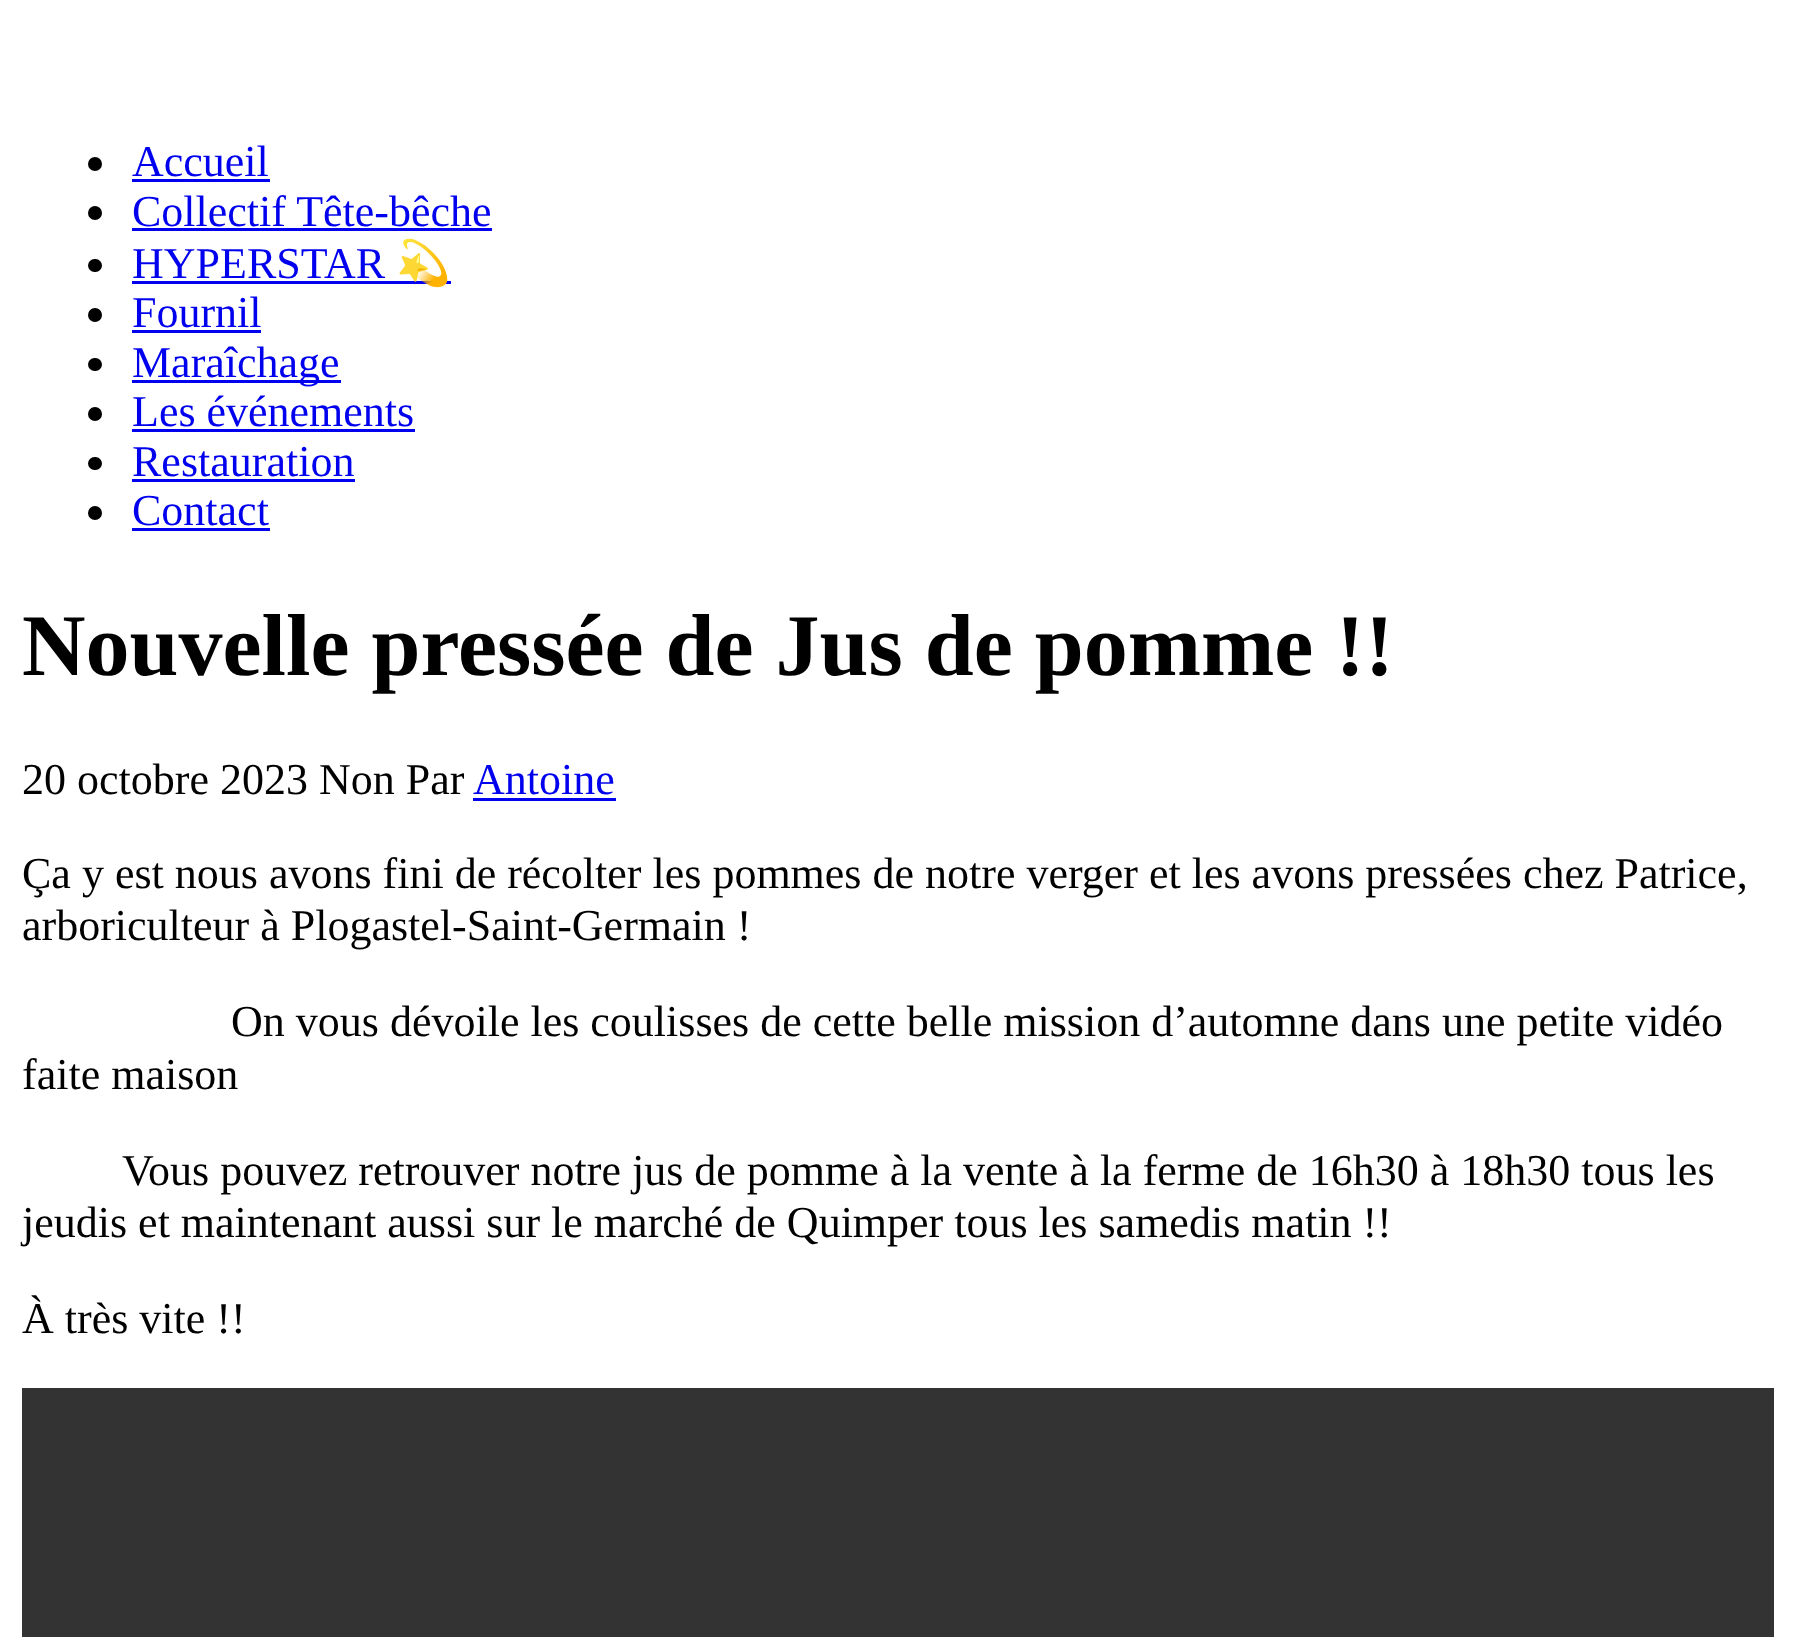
async function draw(canvas) {
  canvas.width = 1795
  canvas.height = 1637
  const ctx = canvas.getContext('2d')
  ctx.miterLimit = 4
  ctx.fontKerning = 'normal'

  ctx.fillStyle = '#fff'
  ctx.fillRect(0, 0, 1795, 1637)
  ctx.fillStyle = '#000'
  ctx.beginPath()
  ctx.arc(95, 164, 7, 0, 2 * Math.PI)
  ctx.fill()
  ctx.font = '44px Liberation Serif'
  ctx.fillStyle = '#00e'
  ctx.fillText('Accueil', 132, 176)
  ctx.fillRect(132, 179, 138, 3)
  ctx.fillStyle = '#000'
  ctx.beginPath()
  ctx.arc(95, 213, 7, 0, 2 * Math.PI)
  ctx.fill()
  ctx.fillStyle = '#00e'
  ctx.fillText('Collectif Tête-bêche', 132, 226)
  ctx.fillRect(132, 228, 360, 3)
  ctx.fillStyle = '#000'
  ctx.beginPath()
  ctx.roundRect(88, 259, 14, 13, 6.5)
  ctx.fill()
  ctx.fillStyle = '#00e'
  ctx.fillText('HYPERSTAR', 132, 278)
  ctx.fillRect(132, 281, 319, 3)
  ctx.font = '44px Noto Color Emoji'
  ctx.fillText('💫', 396, 278)
  ctx.fillStyle = '#000'
  ctx.beginPath()
  ctx.arc(95, 315, 7, 0, 2 * Math.PI)
  ctx.fill()
  ctx.font = '44px Liberation Serif'
  ctx.fillStyle = '#00e'
  ctx.fillText('Fournil', 132, 327)
  ctx.fillRect(132, 330, 129, 3)
  ctx.fillStyle = '#000'
  ctx.beginPath()
  ctx.roundRect(88, 358, 14, 13, 6.5)
  ctx.fill()
  ctx.fillStyle = '#00e'
  ctx.fillRect(132, 380, 209, 3)
  ctx.fillText('Maraîchage', 132, 377)
  ctx.fillStyle = '#000'
  ctx.beginPath()
  ctx.arc(95, 414, 7, 0, 2 * Math.PI)
  ctx.fill()
  ctx.fillStyle = '#00e'
  ctx.fillText('Les événements', 132, 426)
  ctx.fillRect(132, 429, 283, 3)
  ctx.fillStyle = '#000'
  ctx.beginPath()
  ctx.roundRect(88, 457, 14, 13, 6.5)
  ctx.fill()
  ctx.fillStyle = '#00e'
  ctx.fillText('Restauration', 132, 476)
  ctx.fillRect(132, 479, 223, 3)
  ctx.fillStyle = '#000'
  ctx.beginPath()
  ctx.arc(95, 513, 7, 0, 2 * Math.PI)
  ctx.fill()
  ctx.fillStyle = '#00e'
  ctx.fillText('Contact', 132, 525)
  ctx.fillRect(132, 528, 138, 3)
  ctx.font = 'bold 88px Liberation Serif'
  ctx.fillStyle = '#000'
  ctx.fillText('Nouvelle pressée de Jus de pomme !!', 22, 675)
  ctx.font = '44px Liberation Serif'
  ctx.fillText('20 octobre 2023 Non Par', 22, 794)
  ctx.fillStyle = '#00e'
  ctx.fillText('Antoine', 473, 794)
  ctx.fillRect(473, 798, 143, 3)
  ctx.fillStyle = '#000'
  ctx.fillText('Ça y est nous avons fini de récolter les pommes de notre verger et les avons pressées chez Patrice,', 22, 888)
  ctx.fillText('arboriculteur à Plogastel-Saint-Germain !', 22, 940)
  ctx.fillText('On vous dévoile les coulisses de cette belle mission d’automne dans une petite vidéo', 231, 1036)
  ctx.fillText('faite maison', 22, 1089)
  ctx.fillText('Vous pouvez retrouver notre jus de pomme à la vente à la ferme de 16h30 à 18h30 tous les', 122, 1185)
  ctx.fillText('jeudis et maintenant aussi sur le marché de Quimper tous les samedis matin !!', 22, 1237)
  ctx.fillText('À très vite !!', 22, 1333)
  ctx.fillStyle = '#333'
  ctx.fillRect(22, 1388, 1752, 249)
}

draw(document.querySelector('canvas'))
